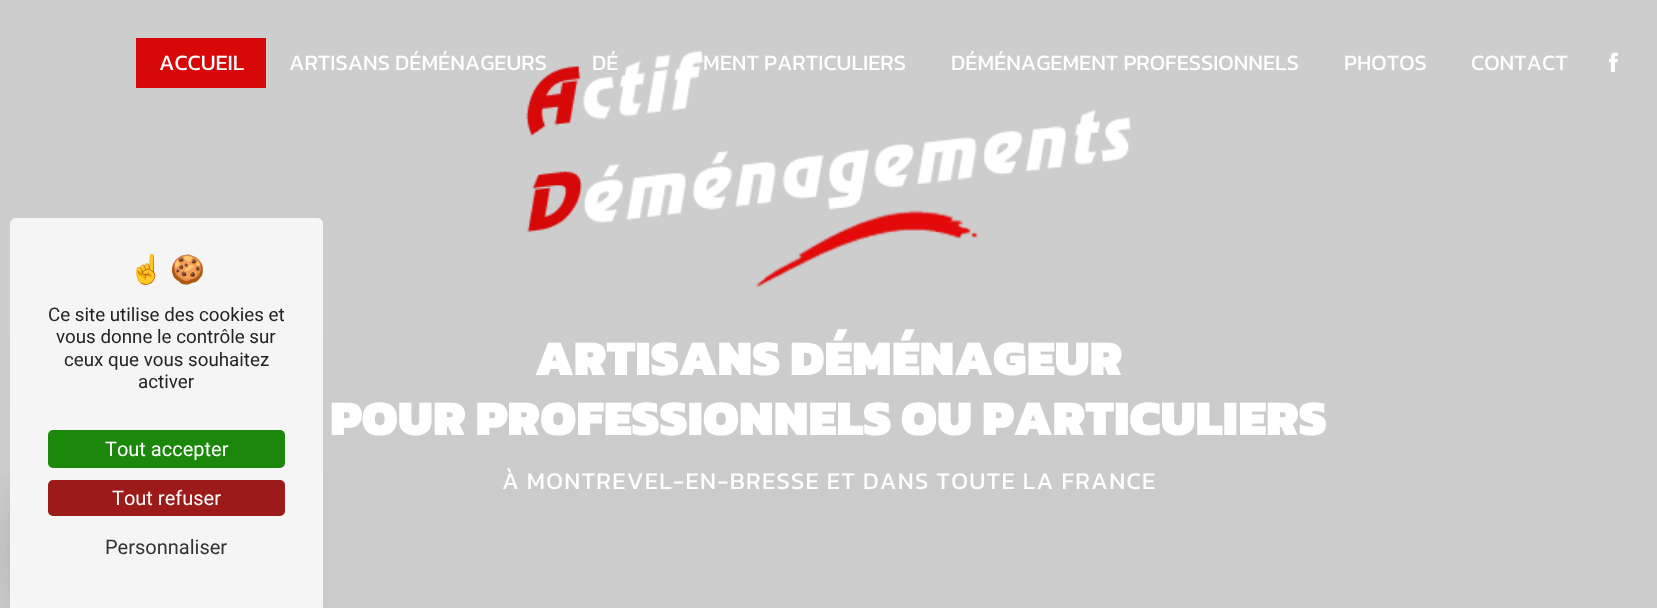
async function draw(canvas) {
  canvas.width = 1657
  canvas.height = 608
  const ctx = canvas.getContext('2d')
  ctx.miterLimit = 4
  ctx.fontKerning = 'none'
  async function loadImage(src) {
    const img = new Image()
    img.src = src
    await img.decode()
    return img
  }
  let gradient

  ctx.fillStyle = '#fff'
  ctx.fillRect(0, 0, 1657, 608)
  gradient = ctx.createLinearGradient(829, 0, 829, 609)
  gradient.addColorStop(0.5, '#cdcdcd')
  gradient.addColorStop(1, '#cacaca')
  ctx.fillStyle = gradient
  ctx.fillRect(0, 0, 1657, 608)
  ctx.fillStyle = '#d70808'
  ctx.fillRect(136, 38, 130, 50)
  ctx.font = '22px Kanit'
  ctx.fillStyle = '#fff'
  ctx.fillText('ACCUEIL', 159, 70)
  ctx.drawImage(await loadImage('image1.png'), 526, 50, 605, 238)
  ctx.fillText('ARTISANS DÉMÉNAGEURS', 289, 70)
  ctx.fillText('DÉ', 592, 70)
  ctx.fillText('MENT PARTICULIERS', 703, 70)
  ctx.fillText('DÉMÉNAGEMENT PROFESSIONNELS', 951, 70)
  ctx.fillText('PHOTOS', 1344, 70)
  ctx.fillText('CONTACT', 1471, 70)
  ctx.drawImage(await loadImage('image0.png'), 1609, 52, 9, 20)
  ctx.fillStyle = '#00000026'
  ctx.filter = 'blur(19px)'
  ctx.beginPath()
  ctx.roundRect(25, 499, 238, 97, 10)
  ctx.fill()
  ctx.filter = 'none'
  ctx.fillStyle = '#0000001a'
  ctx.filter = 'blur(25px)'
  ctx.beginPath()
  ctx.roundRect(25, 505, 238, 98, 10)
  ctx.fill()
  ctx.filter = 'none'
  ctx.fillStyle = '#f5f5f5'
  ctx.beginPath()
  ctx.moveTo(16, 218)
  ctx.lineTo(317, 218)
  ctx.bezierCurveTo(320.5, 218, 323, 220.5, 323, 224)
  ctx.lineTo(323, 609)
  ctx.lineTo(10, 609)
  ctx.lineTo(10, 224)
  ctx.bezierCurveTo(10, 220.5, 12.5, 218, 16, 218)
  ctx.closePath()
  ctx.fill()
  ctx.font = '28px Noto Color Emoji'
  ctx.fillStyle = '#242424'
  ctx.fillText('☝', 129, 279)
  ctx.fillText('🍪', 170, 279)
  ctx.font = '18.75px Roboto'
  ctx.fillText('Ce site utilise des cookies et', 48, 321)
  ctx.fillText('vous donne le contrôle sur', 56, 343)
  ctx.fillText('ceux que vous souhaitez', 64, 366)
  ctx.fillText('activer', 138, 388)
  ctx.fillStyle = '#1b870b'
  ctx.beginPath()
  ctx.roundRect(48, 430, 237, 38, 5)
  ctx.fill()
  ctx.font = '20px Roboto'
  ctx.fillStyle = '#fff'
  ctx.fillText('Tout accepter', 105, 456)
  ctx.fillStyle = '#9c1a1a'
  ctx.beginPath()
  ctx.roundRect(48, 480, 237, 36, 5)
  ctx.fill()
  ctx.fillStyle = '#fff'
  ctx.fillText('Tout refuser', 112, 505)
  ctx.fillStyle = '#333'
  ctx.fillText('Personnaliser', 105, 554)
  ctx.font = '900 50px Kanit'
  ctx.fillStyle = '#fff'
  ctx.fillText('ARTISANS DÉMÉNAGEUR', 535, 375)
  ctx.fillText('POUR PROFESSIONNELS OU PARTICULIERS', 330, 435)
  ctx.letterSpacing = '1.25px'
  ctx.font = '24px Kanit'
  ctx.fillText('À MONTREVEL-EN-BRESSE ET DANS TOUTE LA FRANCE', 502, 489)
}

draw(document.querySelector('canvas'))
